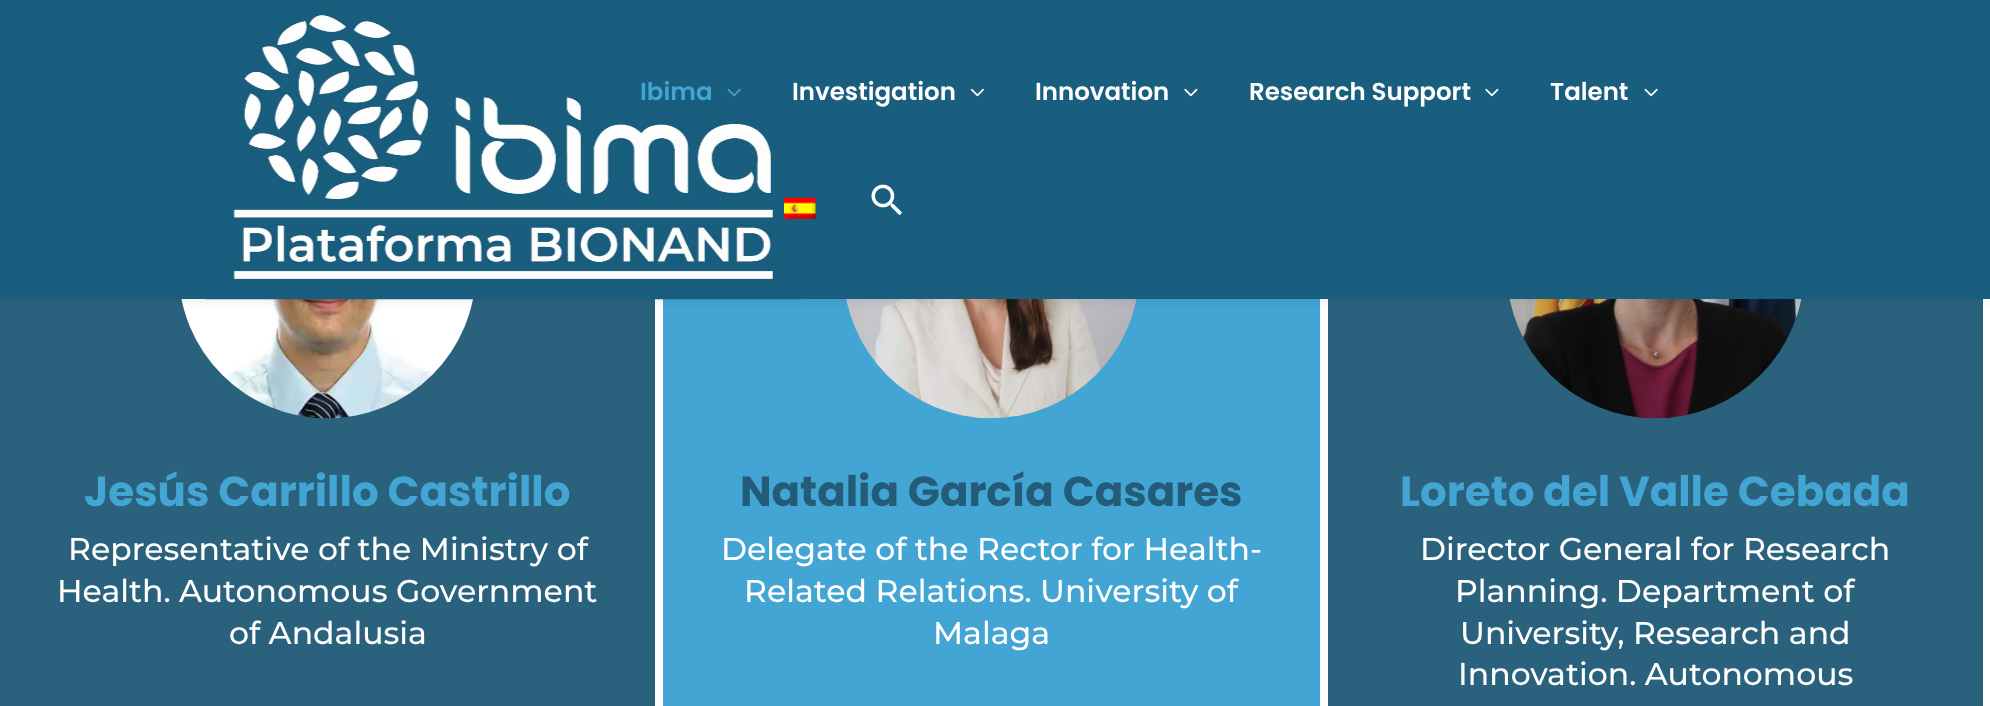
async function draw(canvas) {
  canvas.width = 1990
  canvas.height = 706
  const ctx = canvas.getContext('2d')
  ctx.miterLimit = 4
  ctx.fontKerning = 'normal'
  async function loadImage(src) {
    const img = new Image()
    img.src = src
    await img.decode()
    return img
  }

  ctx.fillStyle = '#fff'
  ctx.fillRect(0, 0, 1990, 706)
  ctx.fillStyle = '#2a627d'
  ctx.fillRect(0, 299, 655, 407)
  ctx.drawImage(await loadImage('image7.png'), 181, 299, 292, 120)
  ctx.fillStyle = '#43a5d3'
  ctx.fillRect(663, 299, 657, 407)
  ctx.drawImage(await loadImage('image8.png'), 846, 299, 291, 120)
  ctx.fillStyle = '#2a627d'
  ctx.fillRect(1328, 299, 655, 407)
  ctx.drawImage(await loadImage('image9.png'), 1509, 299, 293, 120)
  ctx.fillStyle = '#0000001a'
  ctx.filter = 'blur(6px)'
  ctx.beginPath()
  ctx.rect(0, 0, 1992, 299)
  ctx.fill()
  ctx.filter = 'none'
  ctx.fillStyle = '#195e7f'
  ctx.fillRect(0, 0, 1990, 299)
  ctx.drawImage(await loadImage('image0.png'), 205, 10, 597, 290)
  ctx.font = '600 24.5px Poppins'
  ctx.fillStyle = '#43a5d3'
  ctx.fillText('Ibima', 640, 100)
  ctx.drawImage(await loadImage('image1.png'), 727, 88, 14, 9)
  ctx.fillStyle = '#fff'
  ctx.fillText('Investigation', 792, 100)
  ctx.drawImage(await loadImage('image2.png'), 970, 88, 14, 9)
  ctx.fillText('Innovation', 1035, 100)
  ctx.drawImage(await loadImage('image3.png'), 1184, 88, 14, 9)
  ctx.fillText('Research Support', 1249, 100)
  ctx.drawImage(await loadImage('image3.png'), 1485, 88, 14, 9)
  ctx.fillText('Talent', 1550, 100)
  ctx.drawImage(await loadImage('image4.png'), 1644, 88, 14, 9)
  ctx.drawImage(await loadImage('image5.png'), 784, 197, 32, 22)
  ctx.drawImage(await loadImage('image6.png'), 871, 184, 31, 32)
  ctx.font = 'bold 42px Poppins'
  ctx.fillStyle = '#43a5d3'
  ctx.fillText('Jesús Carrillo Castrillo', 84, 506)
  ctx.font = '100 31.5px Montserrat'
  ctx.fillStyle = '#fff'
  ctx.fillText('Representative of the Ministry of', 68, 560)
  ctx.fillText('Health. Autonomous Government', 57, 602)
  ctx.fillText('of Andalusia', 229, 644)
  ctx.font = 'bold 42px Poppins'
  ctx.fillStyle = '#235b78'
  ctx.fillText('Natalia García Casares', 740, 506)
  ctx.font = '100 31.5px Montserrat'
  ctx.fillStyle = '#fff'
  ctx.fillText('Delegate of the Rector for Health-', 721, 560)
  ctx.fillText('Related Relations. University of', 744, 602)
  ctx.fillText('Malaga', 933, 644)
  ctx.font = 'bold 42px Poppins'
  ctx.fillStyle = '#43a5d3'
  ctx.fillText('Loreto del Valle Cebada', 1400, 506)
  ctx.font = '100 31.5px Montserrat'
  ctx.fillStyle = '#fff'
  ctx.fillText('Director General for Research', 1420, 560)
  ctx.fillText('Planning. Department of', 1455, 602)
  ctx.fillText('University, Research and', 1460, 644)
  ctx.fillText('Innovation. Autonomous', 1458, 685)
}

draw(document.querySelector('canvas'))
